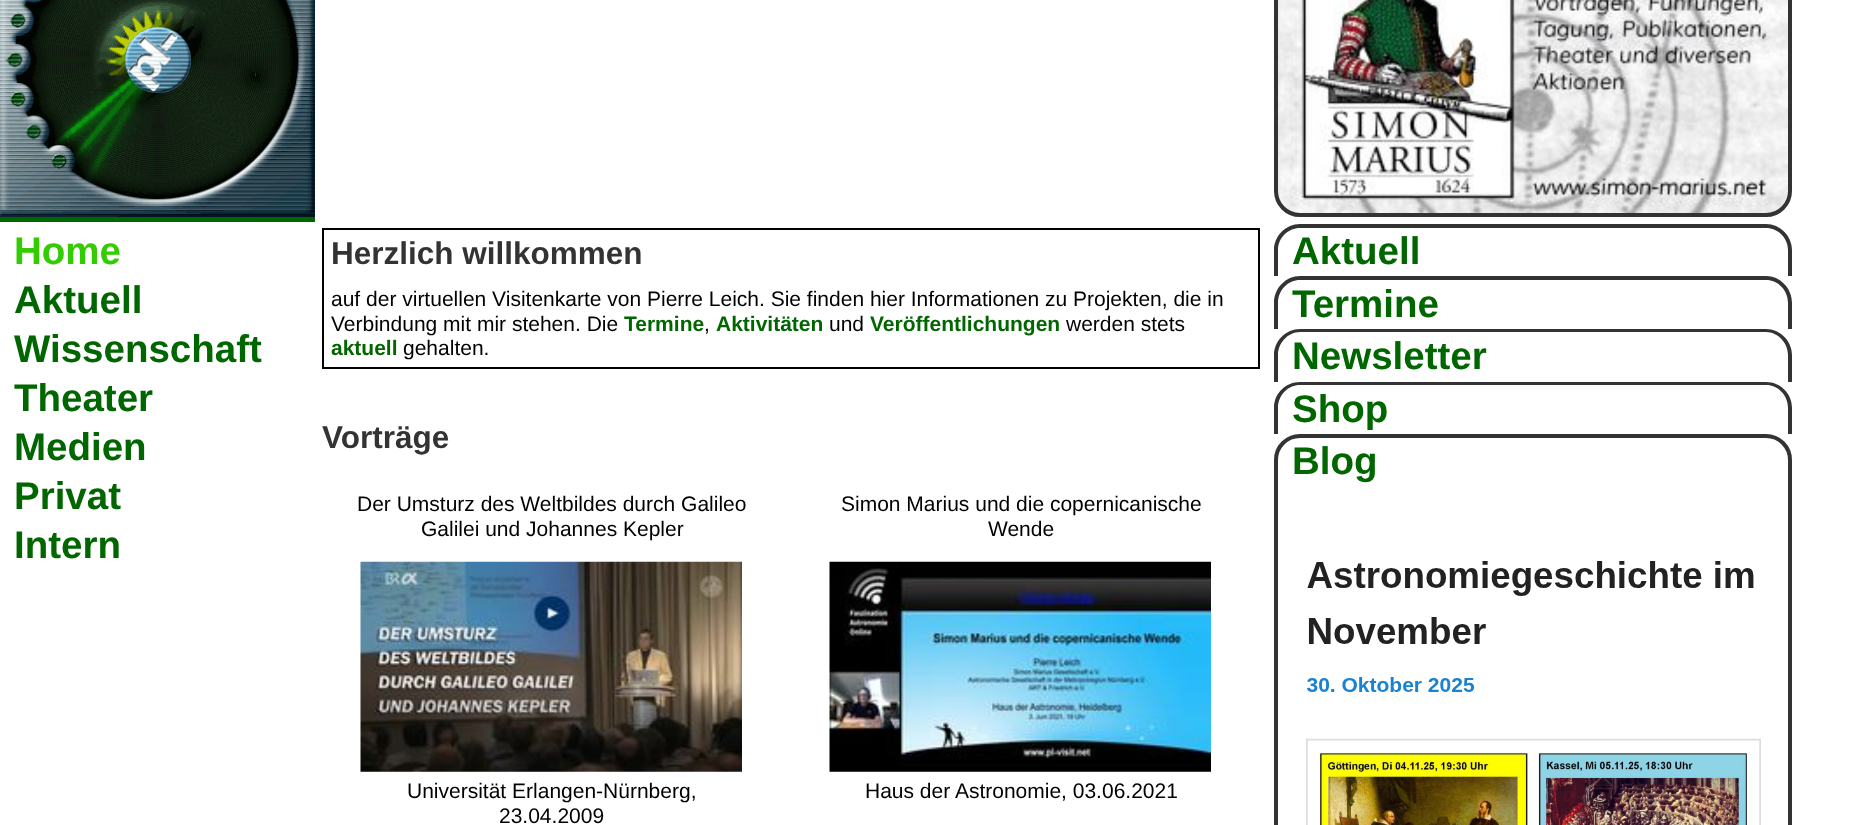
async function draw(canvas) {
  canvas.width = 1867
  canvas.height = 825
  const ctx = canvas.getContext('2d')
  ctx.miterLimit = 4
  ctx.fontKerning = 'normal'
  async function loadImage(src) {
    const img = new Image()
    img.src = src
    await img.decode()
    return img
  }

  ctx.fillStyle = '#fff'
  ctx.fillRect(0, 0, 1867, 825)
  ctx.drawImage(await loadImage('image0.png'), 0, 0, 315, 217)
  ctx.fillStyle = '#060'
  ctx.fillRect(0, 217, 315, 5)
  ctx.drawImage(await loadImage('image1.png'), 1277, 0, 512, 217)
  ctx.beginPath()
  ctx.roundRect(1276, -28, 514, 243, 24)
  ctx.strokeStyle = '#333'
  ctx.lineWidth = 4
  ctx.stroke()
  ctx.font = 'bold 38.5px Liberation Sans'
  ctx.fillStyle = '#3c0'
  ctx.fillText('Home', 14, 264)
  ctx.fillStyle = '#060'
  ctx.fillText('Aktuell', 14, 313)
  ctx.fillText('Wissenschaft', 14, 362)
  ctx.fillText('Theater', 14, 411)
  ctx.fillText('Medien', 14, 460)
  ctx.fillText('Privat', 14, 509)
  ctx.fillText('Intern', 14, 558)
  ctx.strokeStyle = '#000'
  ctx.lineWidth = 2
  ctx.strokeRect(323, 229, 936, 139)
  ctx.font = 'bold 31.5px Liberation Sans'
  ctx.fillStyle = '#333'
  ctx.fillText('Herzlich willkommen', 331, 264)
  ctx.font = '21px Liberation Sans'
  ctx.fillStyle = '#000'
  ctx.fillText('auf der virtuellen Visitenkarte von Pierre Leich. Sie finden hier Informationen zu Projekten, die in', 331, 306)
  ctx.fillText('Verbindung mit mir stehen. Die', 331, 331)
  ctx.font = 'bold 21px Liberation Sans'
  ctx.fillStyle = '#060'
  ctx.fillText('Termine', 624, 331)
  ctx.font = '21px Liberation Sans'
  ctx.fillStyle = '#000'
  ctx.fillText(',', 704, 331)
  ctx.font = 'bold 21px Liberation Sans'
  ctx.fillStyle = '#060'
  ctx.fillText('Aktivitäten', 716, 331)
  ctx.font = '21px Liberation Sans'
  ctx.fillStyle = '#000'
  ctx.fillText('und', 829, 331)
  ctx.font = 'bold 21px Liberation Sans'
  ctx.fillStyle = '#060'
  ctx.fillText('Veröffentlichungen', 870, 331)
  ctx.font = '21px Liberation Sans'
  ctx.fillStyle = '#000'
  ctx.fillText('werden stets', 1066, 331)
  ctx.font = 'bold 21px Liberation Sans'
  ctx.fillStyle = '#060'
  ctx.fillText('aktuell', 331, 355)
  ctx.font = '21px Liberation Sans'
  ctx.fillStyle = '#000'
  ctx.fillText('gehalten.', 403, 355)
  ctx.font = 'bold 31.5px Liberation Sans'
  ctx.fillStyle = '#333'
  ctx.fillText('Vorträge', 322, 448)
  ctx.font = '21px Liberation Sans'
  ctx.fillStyle = '#000'
  ctx.fillText('Der Umsturz des Weltbildes durch Galileo', 357, 511)
  ctx.fillText('Galilei und Johannes Kepler', 421, 536)
  ctx.drawImage(await loadImage('image2.png'), 360, 561, 382, 211)
  ctx.fillText('Universität Erlangen-Nürnberg,', 407, 798)
  ctx.fillText('23.04.2009', 499, 823)
  ctx.fillText('Simon Marius und die copernicanische', 841, 511)
  ctx.fillText('Wende', 988, 536)
  ctx.drawImage(await loadImage('image3.png'), 829, 561, 382, 211)
  ctx.fillText('Haus der Astronomie, 03.06.2021', 865, 798)
  ctx.fillStyle = '#333'
  ctx.beginPath()
  ctx.moveTo(1300, 224)
  ctx.lineTo(1766, 224)
  ctx.bezierCurveTo(1780, 224, 1792, 236, 1792, 250)
  ctx.lineTo(1792, 276)
  ctx.lineTo(1274, 276)
  ctx.lineTo(1274, 250)
  ctx.bezierCurveTo(1274, 236, 1286, 224, 1300, 224)
  ctx.closePath()
  ctx.moveTo(1300, 228)
  ctx.lineTo(1766, 228)
  ctx.bezierCurveTo(1778, 228, 1788, 238, 1788, 250)
  ctx.lineTo(1788, 276)
  ctx.lineTo(1278, 276)
  ctx.lineTo(1278, 250)
  ctx.bezierCurveTo(1278, 238, 1288, 228, 1300, 228)
  ctx.closePath()
  ctx.fill('evenodd')
  ctx.font = 'bold 38.5px Liberation Sans'
  ctx.fillStyle = '#060'
  ctx.fillText('Aktuell', 1292, 264)
  ctx.fillStyle = '#333'
  ctx.beginPath()
  ctx.moveTo(1300, 276)
  ctx.lineTo(1766, 276)
  ctx.bezierCurveTo(1780, 276, 1792, 288, 1792, 303)
  ctx.lineTo(1792, 329)
  ctx.lineTo(1274, 329)
  ctx.lineTo(1274, 303)
  ctx.bezierCurveTo(1274, 288, 1286, 276, 1300, 276)
  ctx.closePath()
  ctx.moveTo(1300, 280)
  ctx.lineTo(1766, 280)
  ctx.bezierCurveTo(1778, 280, 1788, 290, 1788, 303)
  ctx.lineTo(1788, 329)
  ctx.lineTo(1278, 329)
  ctx.lineTo(1278, 303)
  ctx.bezierCurveTo(1278, 290, 1288, 280, 1300, 280)
  ctx.closePath()
  ctx.fill('evenodd')
  ctx.fillStyle = '#060'
  ctx.fillText('Termine', 1292, 317)
  ctx.fillStyle = '#333'
  ctx.beginPath()
  ctx.moveTo(1300, 329)
  ctx.lineTo(1766, 329)
  ctx.bezierCurveTo(1780, 329, 1792, 341, 1792, 355)
  ctx.lineTo(1792, 382)
  ctx.lineTo(1274, 382)
  ctx.lineTo(1274, 355)
  ctx.bezierCurveTo(1274, 341, 1286, 329, 1300, 329)
  ctx.closePath()
  ctx.moveTo(1300, 332)
  ctx.lineTo(1766, 332)
  ctx.bezierCurveTo(1778, 332, 1788, 343, 1788, 355)
  ctx.lineTo(1788, 382)
  ctx.lineTo(1278, 382)
  ctx.lineTo(1278, 355)
  ctx.bezierCurveTo(1278, 343, 1288, 332, 1300, 332)
  ctx.closePath()
  ctx.fill('evenodd')
  ctx.fillStyle = '#060'
  ctx.fillText('Newsletter', 1292, 369)
  ctx.fillStyle = '#333'
  ctx.beginPath()
  ctx.moveTo(1300, 382)
  ctx.lineTo(1766, 382)
  ctx.bezierCurveTo(1780, 382, 1792, 393, 1792, 408)
  ctx.lineTo(1792, 434)
  ctx.lineTo(1274, 434)
  ctx.lineTo(1274, 408)
  ctx.bezierCurveTo(1274, 393, 1286, 382, 1300, 382)
  ctx.closePath()
  ctx.moveTo(1300, 385)
  ctx.lineTo(1766, 385)
  ctx.bezierCurveTo(1778, 385, 1788, 395, 1788, 408)
  ctx.lineTo(1788, 434)
  ctx.lineTo(1278, 434)
  ctx.lineTo(1278, 408)
  ctx.bezierCurveTo(1278, 395, 1288, 385, 1300, 385)
  ctx.closePath()
  ctx.fill('evenodd')
  ctx.fillStyle = '#060'
  ctx.fillText('Shop', 1292, 422)
  ctx.beginPath()
  ctx.roundRect(1276, 436, 514, 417, 24)
  ctx.strokeStyle = '#333'
  ctx.lineWidth = 4
  ctx.stroke()
  ctx.fillText('Blog', 1292, 474)
  ctx.drawImage(await loadImage('image4.png'), 1306, 561, 455, 264)
}

draw(document.querySelector('canvas'))
